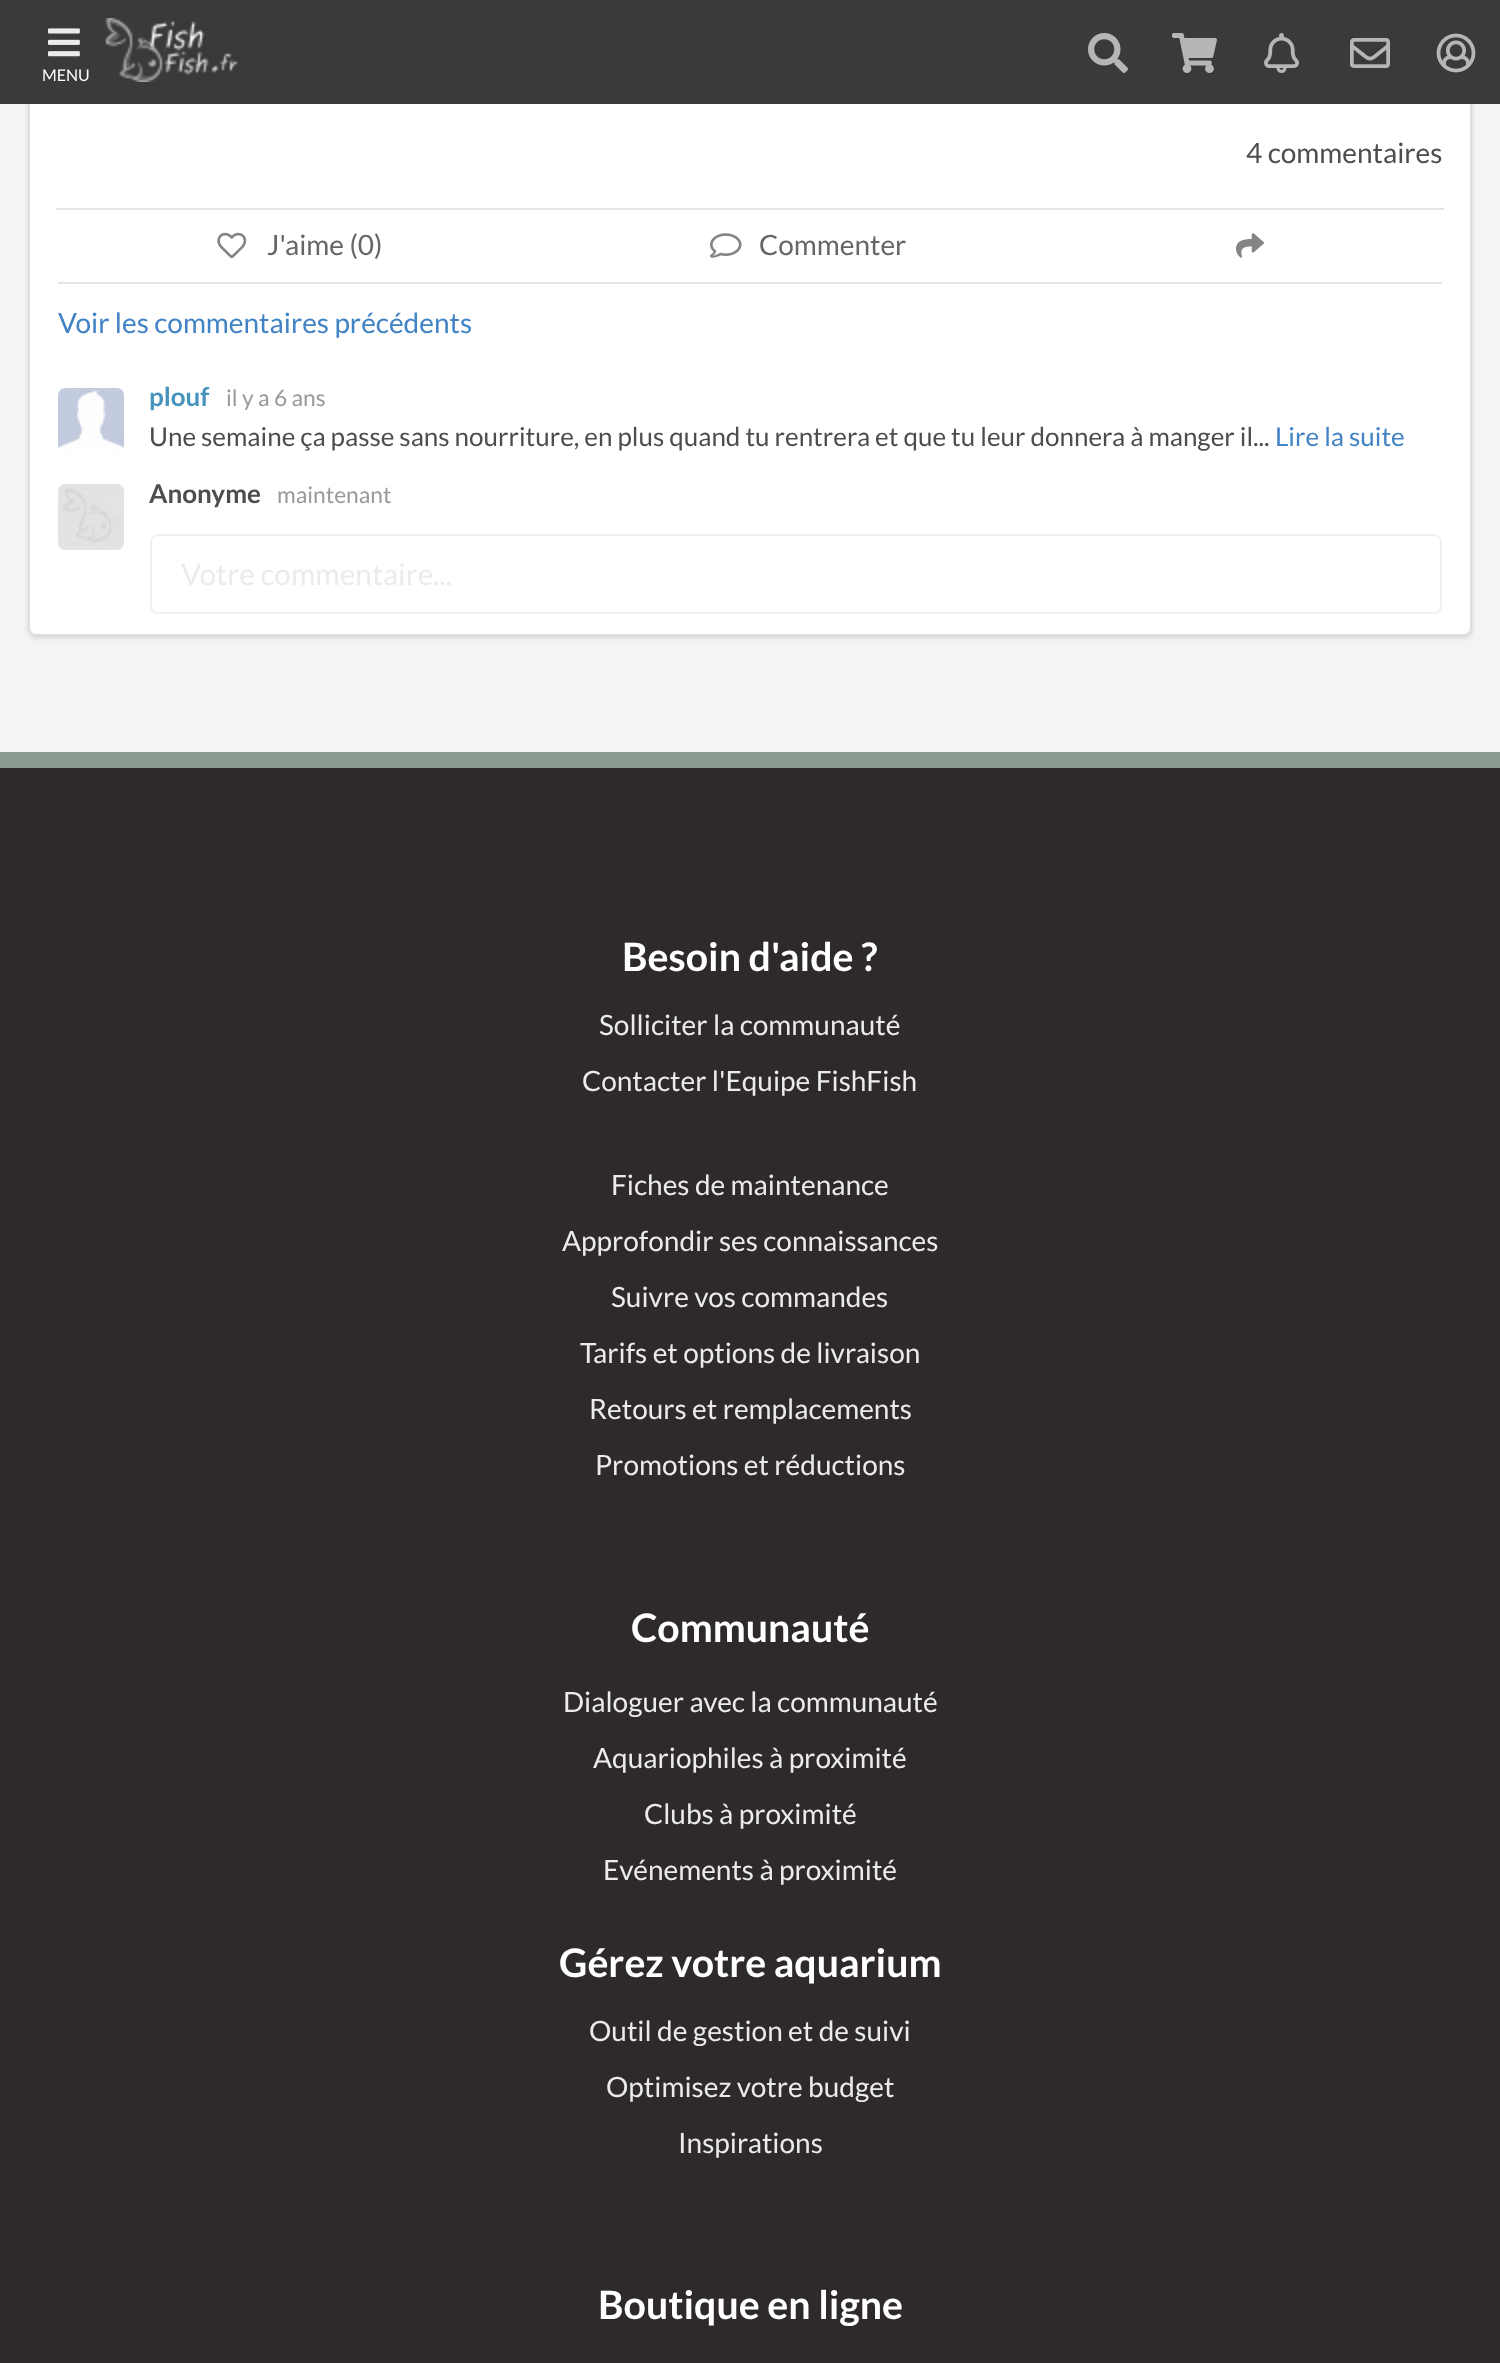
async function draw(canvas) {
  canvas.width = 1500
  canvas.height = 2363
  const ctx = canvas.getContext('2d')
  ctx.miterLimit = 4
  ctx.fontKerning = 'normal'
  async function loadImage(src) {
    const img = new Image()
    img.src = src
    await img.decode()
    return img
  }

  ctx.fillStyle = '#f4f4f4'
  ctx.fillRect(0, 0, 1500, 2363)
  ctx.fillStyle = '#22242626'
  ctx.filter = 'blur(2px)'
  ctx.beginPath()
  ctx.roundRect(28, -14, 1444, 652, 8)
  ctx.fill()
  ctx.filter = 'none'
  ctx.fillStyle = '#fff'
  ctx.beginPath()
  ctx.roundRect(28, -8, 1444, 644, 8)
  ctx.fill()
  ctx.beginPath()
  ctx.roundRect(29, -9, 1442, 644, 7)
  ctx.strokeStyle = '#22242626'
  ctx.lineWidth = 2
  ctx.stroke()
  ctx.fillStyle = '#e8e8e8'
  ctx.beginPath()
  ctx.roundRect(170, 22, 110, 52, 8)
  ctx.fill()
  ctx.fillStyle = '#e5e5e6'
  ctx.fillRect(58, 102, 1384, 2)
  ctx.fillStyle = '#2f2f2ff2'
  ctx.fillRect(0, 0, 1500, 104)
  ctx.drawImage(await loadImage('image0.png'), 105, 18, 134, 64)
  ctx.drawImage(await loadImage('image1.png'), 1088, 33, 40, 40)
  ctx.drawImage(await loadImage('image2.png'), 1172, 33, 45, 40)
  ctx.drawImage(await loadImage('image3.png'), 1264, 33, 35, 40)
  ctx.drawImage(await loadImage('image4.png'), 1350, 38, 40, 30)
  ctx.drawImage(await loadImage('image5.png'), 1436, 33, 40, 40)
  ctx.drawImage(await loadImage('image6.png'), 48, 28, 32, 29)
  ctx.font = '16px Lato'
  ctx.fillStyle = '#fff'
  ctx.fillText('MENU', 42, 81)
  ctx.font = '28px Lato'
  ctx.fillStyle = '#4d4d4d'
  ctx.fillText('4 commentaires', 1246, 163)
  ctx.fillStyle = '#e5e5e6'
  ctx.fillRect(56, 208, 1388, 2)
  ctx.drawImage(await loadImage('image7.png'), 217, 232, 30, 27)
  ctx.fillStyle = '#666'
  ctx.fillText('J\'aime (0)', 267, 255)
  ctx.drawImage(await loadImage('image8.png'), 710, 233, 32, 25)
  ctx.fillText('Commenter', 759, 255)
  ctx.drawImage(await loadImage('image9.png'), 1236, 233, 28, 25)
  ctx.fillStyle = '#e5e5e6'
  ctx.fillRect(58, 282, 1384, 2)
  ctx.fillStyle = '#4183c4'
  ctx.fillText('Voir les commentaires précédents', 58, 333)
  ctx.drawImage(await loadImage('image10.png'), 58, 388, 66, 64)
  ctx.font = 'bold 26px Lato'
  ctx.fillStyle = '#4694bd'
  ctx.fillText('plouf', 149, 406)
  ctx.font = '22.75px Lato'
  ctx.fillStyle = '#999'
  ctx.fillText('il y a 6 ans', 226, 406)
  ctx.font = '26px Lato'
  ctx.fillStyle = '#4d4d4d'
  ctx.fillText('Une semaine ça passe sans nourriture, en plus quand tu rentrera et que tu leur donnera à manger il...', 149, 446)
  ctx.fillStyle = '#4183c4'
  ctx.fillText('Lire la suite', 1275, 446)
  ctx.drawImage(await loadImage('image11.png'), 58, 484, 66, 66)
  ctx.font = 'bold 26px Lato'
  ctx.fillStyle = '#4d4d4d'
  ctx.fillText('Anonyme', 149, 503)
  ctx.font = '22.75px Lato'
  ctx.fillStyle = '#999'
  ctx.fillText('maintenant', 277, 503)
  ctx.beginPath()
  ctx.roundRect(151, 535, 1290, 78, 7)
  ctx.strokeStyle = '#f0f0f0'
  ctx.stroke()
  ctx.font = '29.75px Lato'
  ctx.fillStyle = '#ebebeb'
  ctx.fillText('Votre commentaire...', 181, 585)
  ctx.fillStyle = '#2e292d'
  ctx.fillRect(0, 768, 1500, 1595)
  ctx.fillStyle = '#8c9c91'
  ctx.fillRect(0, 752, 1500, 16)
  ctx.font = 'bold 39.25px Lato'
  ctx.fillStyle = '#fff'
  ctx.fillText('Besoin d\'aide ?', 622, 971)
  ctx.font = '28px Lato'
  ctx.fillStyle = '#ebebeb'
  ctx.fillText('Solliciter la communauté', 599, 1035)
  ctx.fillText('Contacter l\'Equipe FishFish', 582, 1091)
  ctx.fillText('Fiches de maintenance', 611, 1195)
  ctx.fillText('Approfondir ses connaissances', 562, 1251)
  ctx.fillText('Suivre vos commandes', 611, 1307)
  ctx.fillText('Tarifs et options de livraison', 580, 1363)
  ctx.fillText('Retours et remplacements', 589, 1419)
  ctx.fillText('Promotions et réductions', 595, 1475)
  ctx.font = 'bold 39.25px Lato'
  ctx.fillStyle = '#fff'
  ctx.fillText('Communauté', 631, 1642)
  ctx.font = '28px Lato'
  ctx.fillStyle = '#ebebeb'
  ctx.fillText('Dialoguer avec la communauté', 563, 1712)
  ctx.fillText('Aquariophiles à proximité', 593, 1768)
  ctx.fillText('Clubs à proximité', 644, 1824)
  ctx.fillText('Evénements à proximité', 603, 1880)
  ctx.font = 'bold 39.25px Lato'
  ctx.fillStyle = '#fff'
  ctx.fillText('Gérez votre aquarium', 559, 1977)
  ctx.font = '28px Lato'
  ctx.fillStyle = '#ebebeb'
  ctx.fillText('Outil de gestion et de suivi', 589, 2041)
  ctx.fillText('Optimisez votre budget', 606, 2097)
  ctx.fillText('Inspirations', 678, 2153)
  ctx.font = 'bold 39.25px Lato'
  ctx.fillStyle = '#fff'
  ctx.fillText('Boutique en ligne', 598, 2319)
}

draw(document.querySelector('canvas'))
